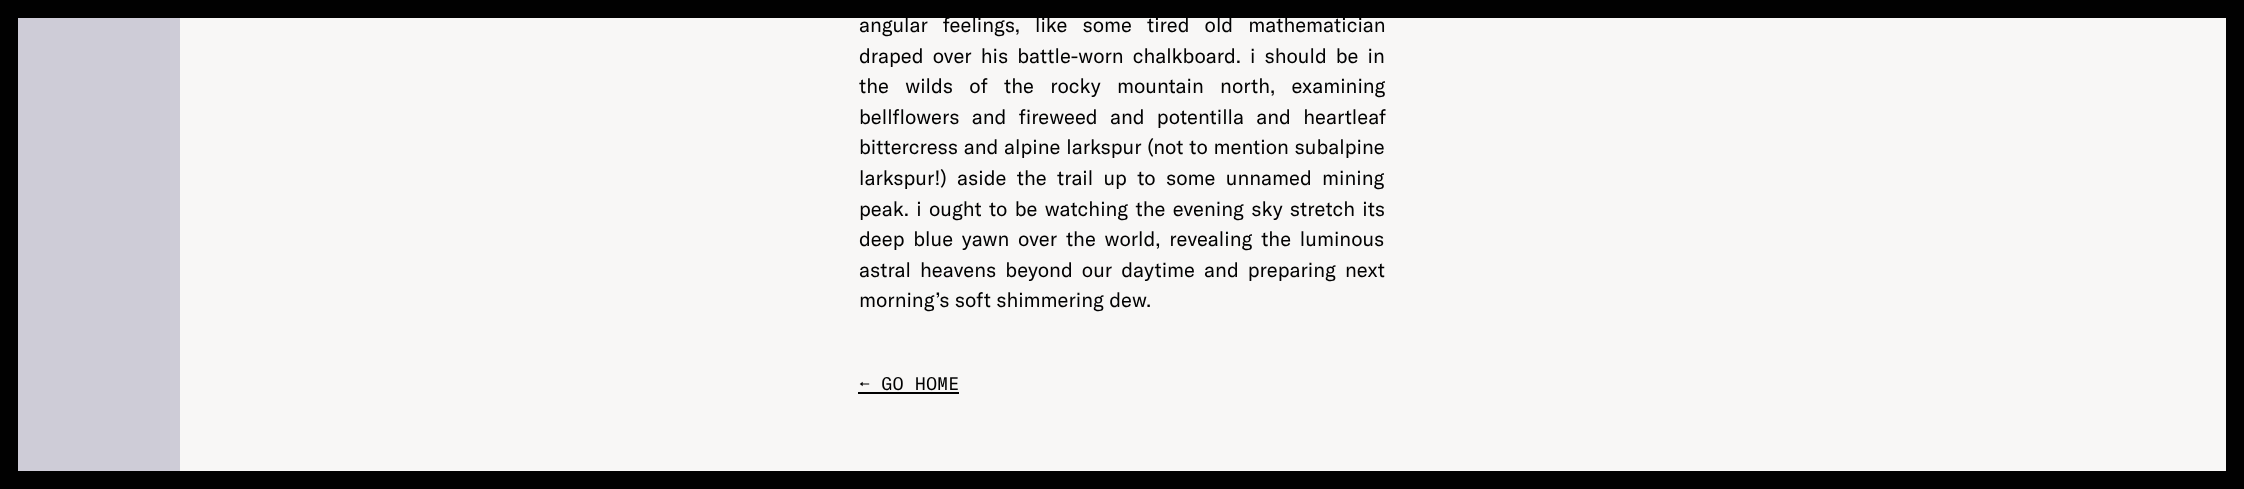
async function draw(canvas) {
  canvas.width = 2244
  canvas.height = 489
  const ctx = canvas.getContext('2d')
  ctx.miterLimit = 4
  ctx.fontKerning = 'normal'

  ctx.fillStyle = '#f8f7f6'
  ctx.fillRect(0, 0, 2244, 489)
  ctx.fillStyle = '#ceccd7'
  ctx.fillRect(18, 18, 162, 453)
  ctx.fillStyle = '#010101'
  ctx.fillRect(858, 392, 101, 2)
  ctx.strokeStyle = '#010101'
  ctx.lineWidth = 18
  ctx.strokeRect(9, 9, 2226, 471)
  ctx.wordSpacing = '9.75px'
  ctx.font = '20.4px GT America'
  ctx.fillText('angular feelings, like some tired old mathematician', 859, 32)
  ctx.wordSpacing = '3.75px'
  ctx.fillText('draped over his battle-worn chalkboard. i should be in', 859, 63)
  ctx.wordSpacing = '11px'
  ctx.fillText('the wilds of the rocky mountain north, examining', 859, 93)
  ctx.wordSpacing = '7px'
  ctx.fillText('bellflowers and fireweed and potentilla and heartleaf', 859, 124)
  ctx.wordSpacing = '0.5px'
  ctx.fillText('bittercress and alpine larkspur (not to mention subalpine', 859, 154)
  ctx.wordSpacing = '5px'
  ctx.fillText('larkspur!) aside the trail up to some unnamed mining', 859, 185)
  ctx.wordSpacing = '2px'
  ctx.fillText('peak. i ought to be watching the evening sky stretch its', 859, 216)
  ctx.wordSpacing = '3.5px'
  ctx.fillText('deep blue yawn over the world, revealing the luminous', 859, 246)
  ctx.wordSpacing = '3.75px'
  ctx.fillText('astral heavens beyond our daytime and preparing next', 859, 277)
  ctx.wordSpacing = '0px'
  ctx.fillText('morning’s soft shimmering dew.', 859, 307)
  ctx.font = '18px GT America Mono'
  ctx.fillText('← GO HOME', 859, 390)
}

draw(document.querySelector('canvas'))
